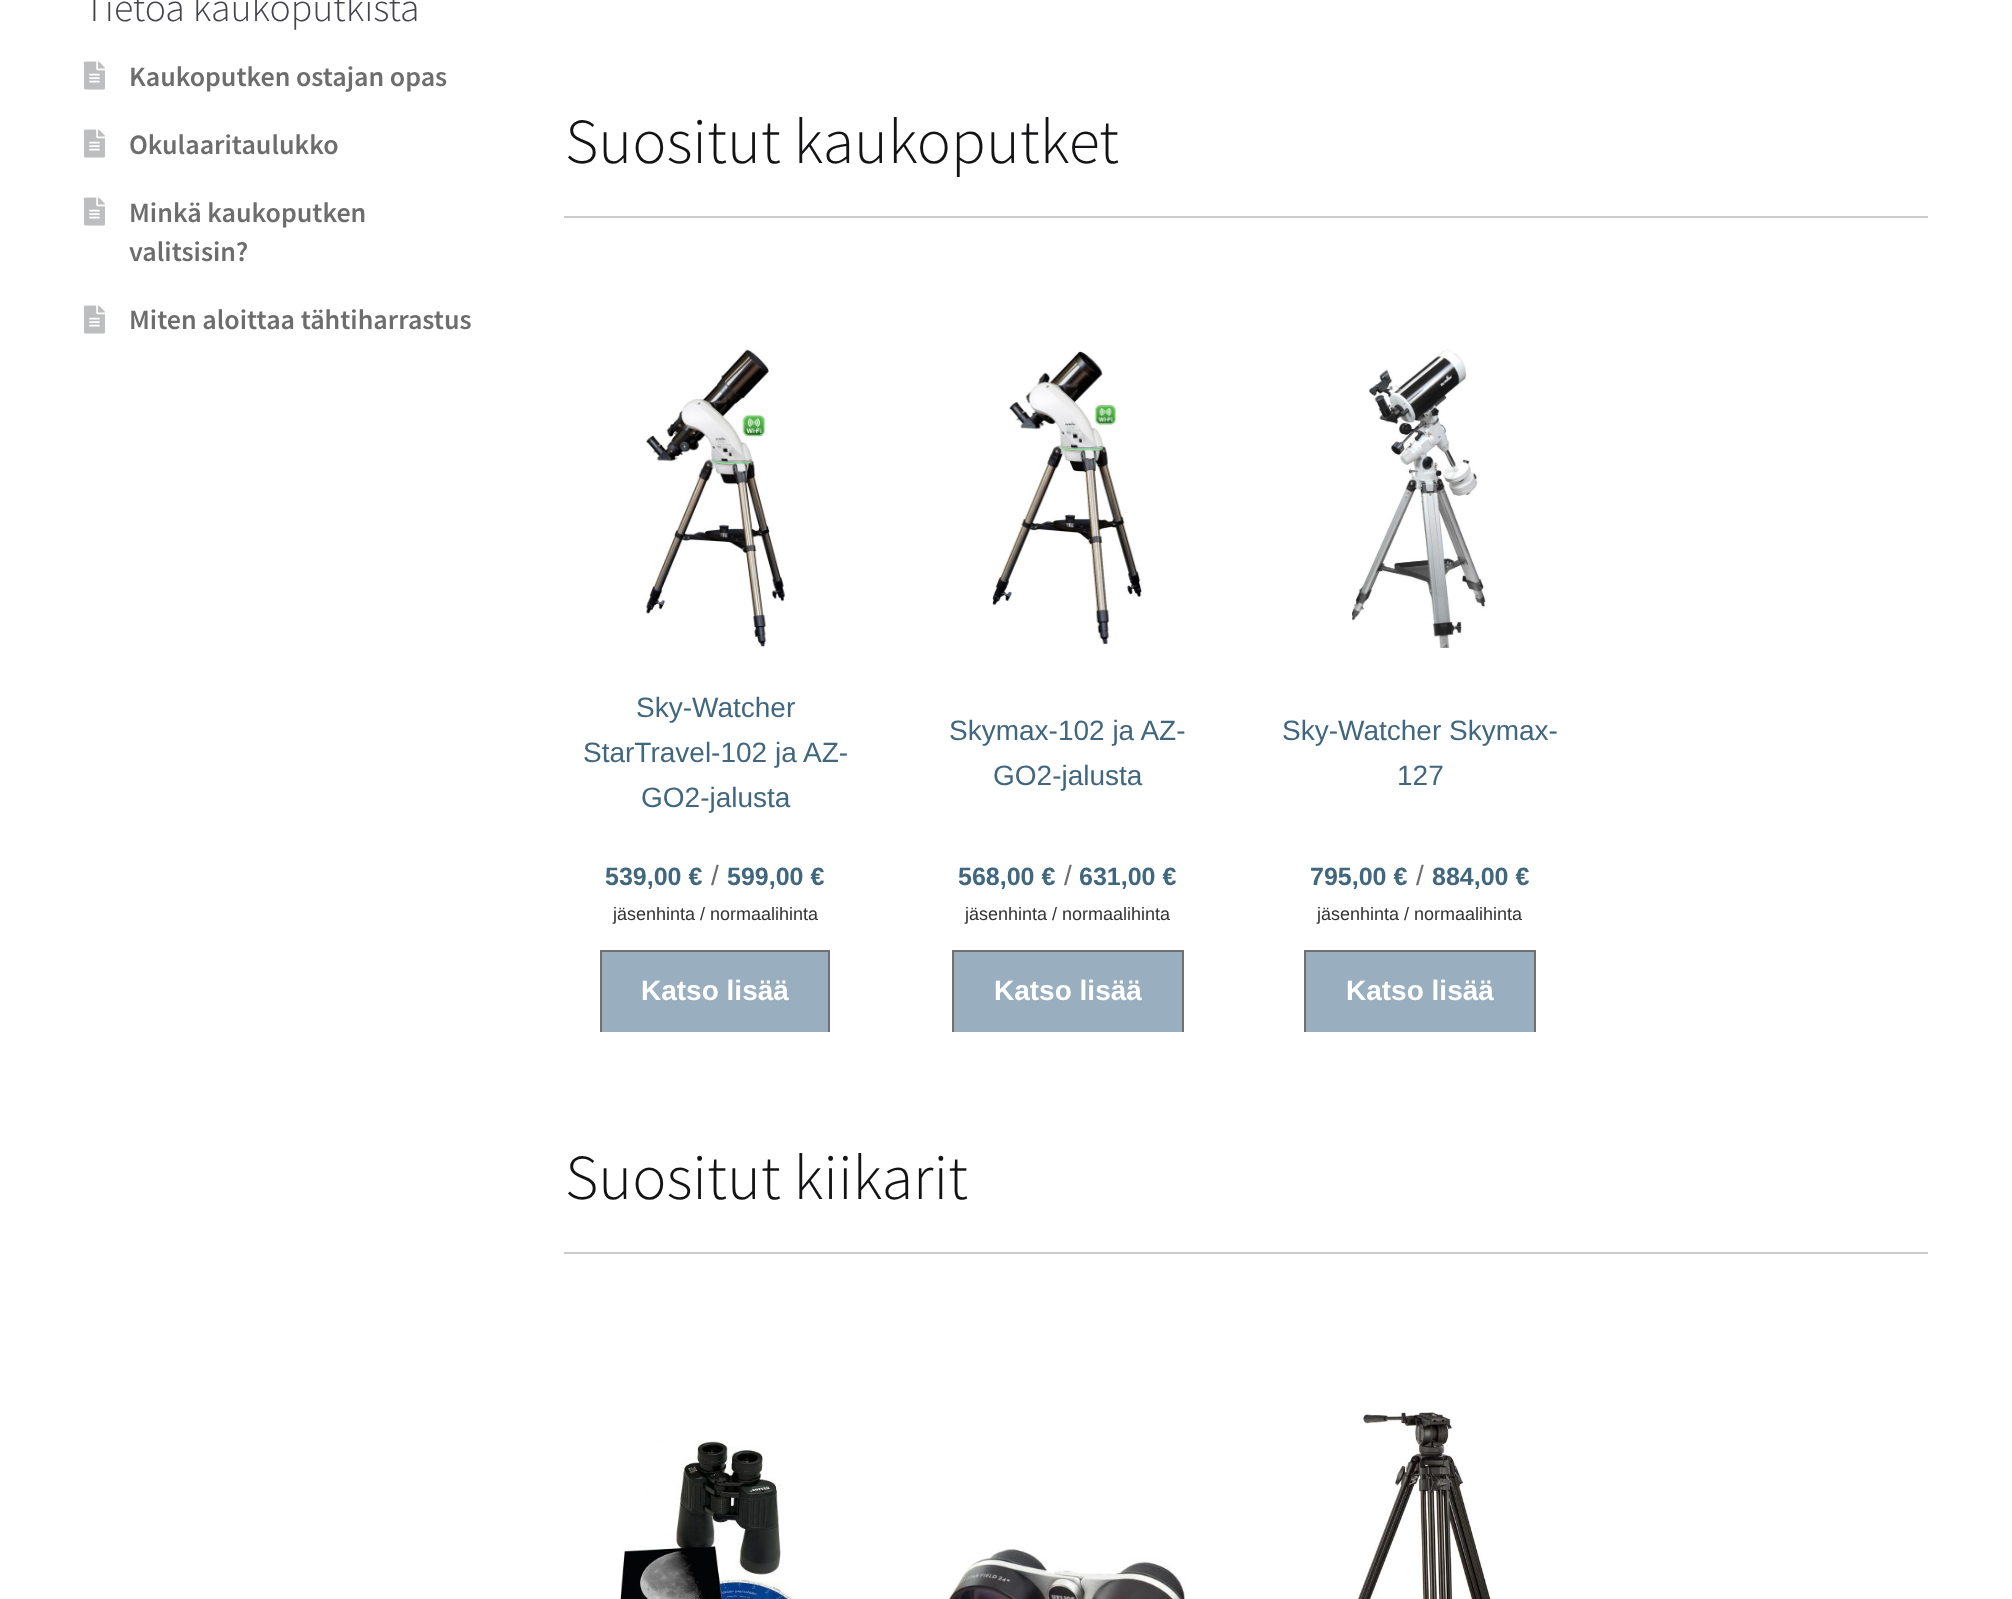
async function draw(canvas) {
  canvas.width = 2012
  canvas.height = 1599
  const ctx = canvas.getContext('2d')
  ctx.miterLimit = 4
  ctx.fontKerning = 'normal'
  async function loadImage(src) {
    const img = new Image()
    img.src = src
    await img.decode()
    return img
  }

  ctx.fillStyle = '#fff'
  ctx.fillRect(0, 0, 2012, 1599)
  ctx.font = '300 39.75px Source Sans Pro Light'
  ctx.fillStyle = '#43454b'
  ctx.fillText('Tietoa kaukoputkista', 84, 21)
  ctx.drawImage(await loadImage('image0.png'), 84, 61, 21, 29)
  ctx.font = '600 28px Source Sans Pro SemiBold'
  ctx.fillStyle = '#6d6d6d'
  ctx.fillText('Kaukoputken ostajan opas', 129, 86)
  ctx.drawImage(await loadImage('image0.png'), 84, 129, 21, 29)
  ctx.fillText('Okulaaritaulukko', 129, 154)
  ctx.drawImage(await loadImage('image0.png'), 84, 197, 21, 29)
  ctx.fillText('Minkä kaukoputken', 129, 222)
  ctx.fillText('valitsisin?', 129, 261)
  ctx.drawImage(await loadImage('image0.png'), 84, 305, 21, 29)
  ctx.fillText('Miten aloittaa tähtiharrastus', 129, 329)
  ctx.font = '300 64px Source Sans Pro Light'
  ctx.fillStyle = '#131315'
  ctx.fillText('Suositut kaukoputket', 565, 163)
  ctx.fillStyle = '#ccc'
  ctx.fillRect(564, 216, 1364, 2)
  ctx.drawImage(await loadImage('image1.png'), 645, 349, 141, 299)
  ctx.font = '28px Liberation Sans'
  ctx.fillStyle = '#41677f'
  ctx.fillText('Sky-Watcher', 636, 717)
  ctx.fillText('StarTravel-102 ja AZ-', 583, 762)
  ctx.fillText('GO2-jalusta', 641, 807)
  ctx.font = 'bold 25px Liberation Sans'
  ctx.fillText('539,00 €', 605, 885)
  ctx.font = '28px Liberation Sans'
  ctx.fillStyle = '#6d6d6d'
  ctx.fillText('/', 711, 885)
  ctx.font = 'bold 25px Liberation Sans'
  ctx.fillStyle = '#41677f'
  ctx.fillText('599,00 €', 727, 885)
  ctx.font = '18px Liberation Sans'
  ctx.fillStyle = '#333'
  ctx.fillText('jäsenhinta / normaalihinta', 613, 920)
  ctx.fillStyle = '#99afc0'
  ctx.fillRect(602, 952, 226, 80)
  ctx.fillStyle = '#707070'
  ctx.fillRect(600, 950, 230, 2)
  ctx.fillRect(828, 950, 2, 82)
  ctx.fillRect(600, 950, 2, 82)
  ctx.font = 'bold 28px Liberation Sans'
  ctx.fillStyle = '#fff'
  ctx.fillText('Katso lisää', 641, 1000)
  ctx.drawImage(await loadImage('image2.png'), 992, 350, 150, 295)
  ctx.font = '28px Liberation Sans'
  ctx.fillStyle = '#41677f'
  ctx.fillText('Skymax-102 ja AZ-', 949, 740)
  ctx.fillText('GO2-jalusta', 993, 785)
  ctx.font = 'bold 25px Liberation Sans'
  ctx.fillText('568,00 €', 958, 885)
  ctx.font = '28px Liberation Sans'
  ctx.fillStyle = '#6d6d6d'
  ctx.fillText('/', 1064, 885)
  ctx.font = 'bold 25px Liberation Sans'
  ctx.fillStyle = '#41677f'
  ctx.fillText('631,00 €', 1079, 885)
  ctx.font = '18px Liberation Sans'
  ctx.fillStyle = '#333'
  ctx.fillText('jäsenhinta / normaalihinta', 965, 920)
  ctx.fillStyle = '#99afc0'
  ctx.fillRect(954, 952, 228, 80)
  ctx.fillStyle = '#707070'
  ctx.fillRect(952, 950, 232, 2)
  ctx.fillRect(1182, 950, 2, 82)
  ctx.fillRect(952, 950, 2, 82)
  ctx.font = 'bold 28px Liberation Sans'
  ctx.fillStyle = '#fff'
  ctx.fillText('Katso lisää', 994, 1000)
  ctx.drawImage(await loadImage('image3.png'), 1352, 349, 134, 299)
  ctx.font = '28px Liberation Sans'
  ctx.fillStyle = '#41677f'
  ctx.fillText('Sky-Watcher Skymax-', 1282, 740)
  ctx.fillText('127', 1397, 785)
  ctx.font = 'bold 25px Liberation Sans'
  ctx.fillText('795,00 €', 1310, 885)
  ctx.font = '28px Liberation Sans'
  ctx.fillStyle = '#6d6d6d'
  ctx.fillText('/', 1416, 885)
  ctx.font = 'bold 25px Liberation Sans'
  ctx.fillStyle = '#41677f'
  ctx.fillText('884,00 €', 1432, 885)
  ctx.font = '18px Liberation Sans'
  ctx.fillStyle = '#333'
  ctx.fillText('jäsenhinta / normaalihinta', 1317, 920)
  ctx.fillStyle = '#99afc0'
  ctx.fillRect(1306, 952, 228, 80)
  ctx.fillStyle = '#707070'
  ctx.fillRect(1304, 950, 232, 2)
  ctx.fillRect(1534, 950, 2, 82)
  ctx.fillRect(1304, 950, 2, 82)
  ctx.font = 'bold 28px Liberation Sans'
  ctx.fillStyle = '#fff'
  ctx.fillText('Katso lisää', 1346, 1000)
  ctx.font = '300 64px Source Sans Pro Light'
  ctx.fillStyle = '#131315'
  ctx.fillText('Suositut kiikarit', 565, 1199)
  ctx.fillStyle = '#ccc'
  ctx.fillRect(564, 1252, 1364, 2)
  ctx.drawImage(await loadImage('image4.png'), 620, 1440, 180, 159)
  ctx.drawImage(await loadImage('image5.png'), 942, 1548, 245, 51)
  ctx.drawImage(await loadImage('image6.png'), 1355, 1410, 137, 189)
}

draw(document.querySelector('canvas'))
